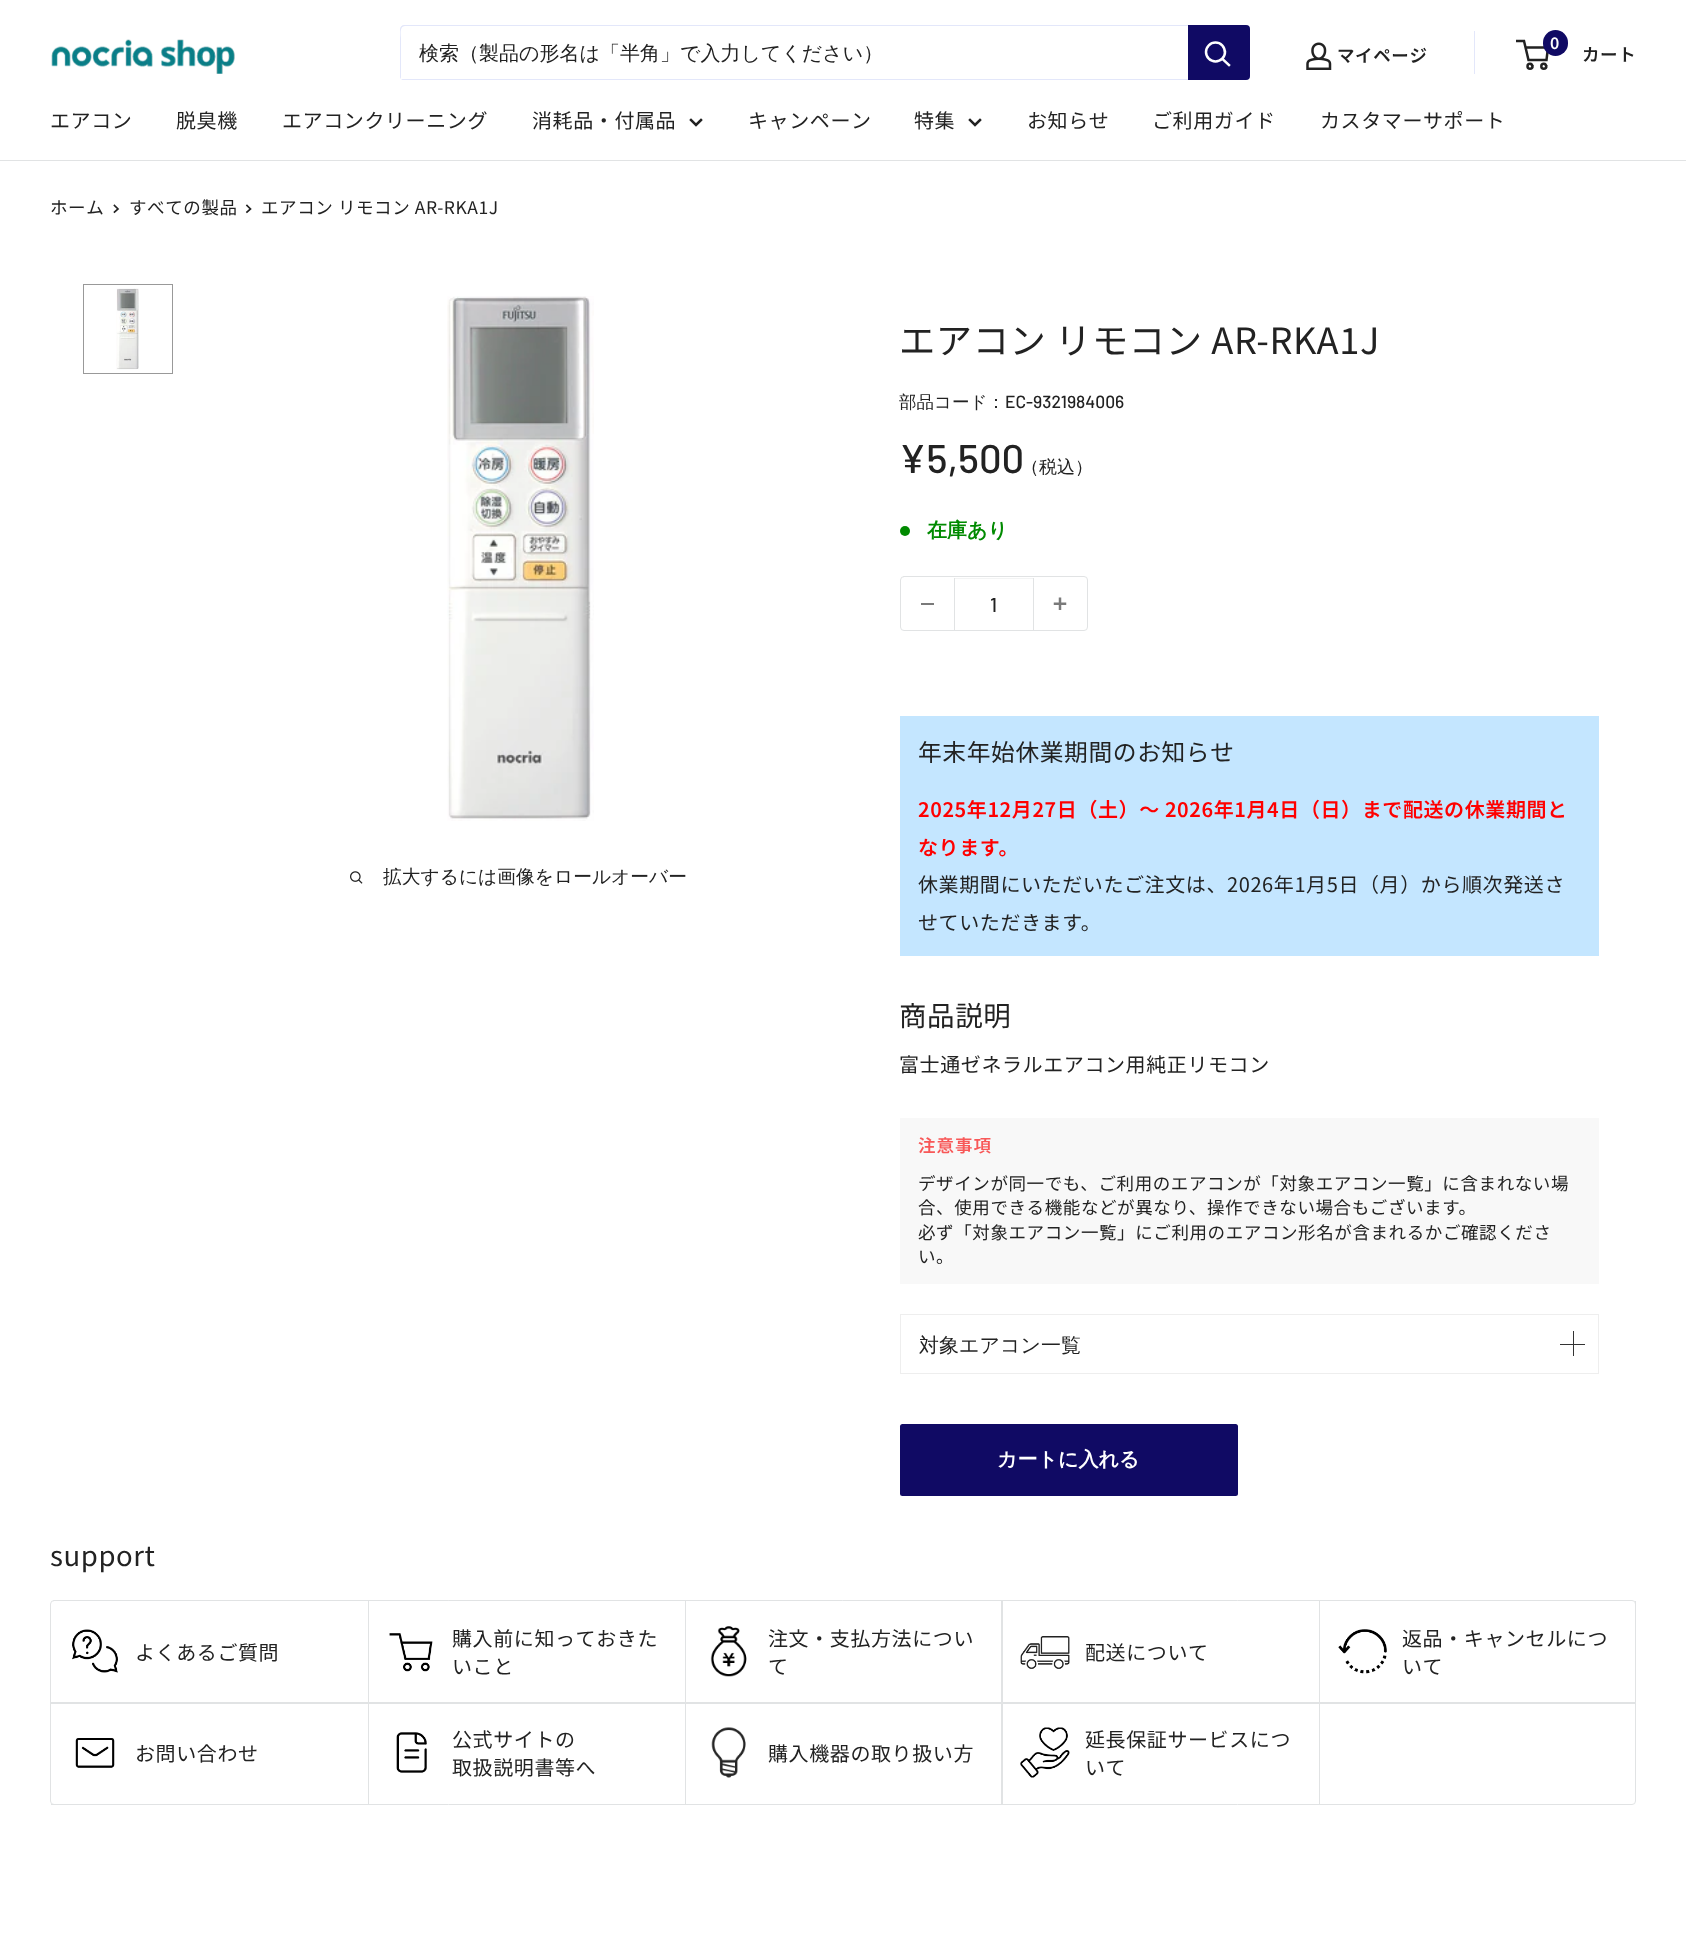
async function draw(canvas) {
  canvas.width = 1686
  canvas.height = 1943
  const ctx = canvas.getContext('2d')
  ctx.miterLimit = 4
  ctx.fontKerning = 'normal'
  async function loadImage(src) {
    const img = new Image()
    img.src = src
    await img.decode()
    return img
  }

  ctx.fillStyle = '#fff'
  ctx.fillRect(0, 0, 1686, 1943)
  ctx.drawImage(await loadImage('image0.png'), 51, 39, 184, 35)
  ctx.fillStyle = '#e3e7fa'
  ctx.beginPath()
  ctx.moveTo(401, 79)
  ctx.bezierCurveTo(402, 80, 403, 80, 404, 80)
  ctx.lineTo(1246, 80)
  ctx.bezierCurveTo(1248, 80, 1250, 78, 1250, 76)
  ctx.lineTo(1250, 29)
  ctx.bezierCurveTo(1250, 28, 1249, 27, 1249, 26)
  ctx.lineTo(1249, 67)
  ctx.bezierCurveTo(1249, 70, 1251, 79, 1245, 79)
  ctx.closePath()
  ctx.fill()
  ctx.beginPath()
  ctx.moveTo(405, 26)
  ctx.lineTo(1249, 26)
  ctx.bezierCurveTo(1248, 25, 1247, 25, 1246, 25)
  ctx.lineTo(404, 25)
  ctx.bezierCurveTo(402, 25, 400, 27, 400, 29)
  ctx.lineTo(400, 76)
  ctx.bezierCurveTo(400, 77, 400, 78, 401, 79)
  ctx.lineTo(401, 38)
  ctx.bezierCurveTo(401, 36, 399, 26, 405, 26)
  ctx.closePath()
  ctx.fill()
  ctx.font = '500 20px WenQuanYi Zen Hei'
  ctx.fillStyle = '#222'
  ctx.fillText('検索（製品の形名は「半角」で入力してください）', 419, 60)
  ctx.fillStyle = '#100a64'
  ctx.beginPath()
  ctx.roundRect(1188, 25, 62, 55, [0, 4, 4, 0])
  ctx.fill()
  ctx.beginPath()
  ctx.moveTo(1229, 65)
  ctx.lineTo(1222.5, 59)
  ctx.strokeStyle = '#fff'
  ctx.lineWidth = 2.5
  ctx.lineCap = 'square'
  ctx.stroke()
  ctx.beginPath()
  ctx.arc(1215.5, 52, 9.5, 0, 2 * Math.PI)
  ctx.stroke()
  ctx.drawImage(await loadImage('image1.png'), 1306, 42, 26, 28)
  ctx.letterSpacing = '0.6px'
  ctx.font = '600 17.5px Noto Sans JP'
  ctx.fillStyle = '#222'
  ctx.fillText('マイページ', 1337, 62)
  ctx.fillStyle = '#e3e7fa'
  ctx.fillRect(1474, 31, 1, 43)
  ctx.beginPath()
  ctx.arc(1530, 66.2, 2.5, 0, 2 * Math.PI)
  ctx.strokeStyle = '#222'
  ctx.stroke()
  ctx.beginPath()
  ctx.arc(1543.8, 66.2, 2.5, 0, 2 * Math.PI)
  ctx.stroke()
  ctx.beginPath()
  ctx.moveTo(1525.5, 47.5)
  ctx.lineTo(1548, 47.5)
  ctx.lineTo(1546.5, 60)
  ctx.lineTo(1528.5, 60)
  ctx.lineTo(1524, 41)
  ctx.lineTo(1516, 41)
  ctx.lineCap = 'butt'
  ctx.stroke()
  ctx.fillStyle = '#100a64'
  ctx.beginPath()
  ctx.roundRect(1543, 30, 25, 26, 12.5)
  ctx.fill()
  ctx.letterSpacing = '1px'
  ctx.font = '600 16px Noto Sans JP'
  ctx.fillStyle = '#fff'
  ctx.fillText('0', 1550, 49)
  ctx.letterSpacing = '0.6px'
  ctx.font = '600 17.5px Noto Sans JP'
  ctx.fillStyle = '#222'
  ctx.fillText('カート', 1582, 61)
  ctx.fillStyle = '#e1e3e4'
  ctx.fillRect(0, 160, 1686, 1)
  ctx.font = '20px Noto Sans JP'
  ctx.fillStyle = '#222'
  ctx.fillText('エアコン', 50, 128)
  ctx.fillText('脱臭機', 176, 128)
  ctx.fillText('エアコンクリーニング', 282, 128)
  ctx.fillText('消耗品・付属品', 532, 128)
  ctx.beginPath()
  ctx.moveTo(701, 120)
  ctx.lineTo(696, 125)
  ctx.lineTo(691, 120)
  ctx.lineCap = 'square'
  ctx.stroke()
  ctx.fillText('キャンペーン', 748, 128)
  ctx.fillText('特集', 914, 128)
  ctx.beginPath()
  ctx.moveTo(980, 120)
  ctx.lineTo(975, 125)
  ctx.lineTo(970, 120)
  ctx.stroke()
  ctx.fillText('お知らせ', 1027, 128)
  ctx.fillText('ご利用ガイド', 1152, 128)
  ctx.fillText('カスタマーサポート', 1320, 128)
  ctx.font = '17.5px Noto Sans JP'
  ctx.fillText('ホーム', 50, 214)
  ctx.beginPath()
  ctx.moveTo(114.5, 205.5)
  ctx.lineTo(118, 209)
  ctx.lineTo(114.5, 212)
  ctx.lineWidth = 1.7
  ctx.stroke()
  ctx.fillText('すべての製品', 129, 214)
  ctx.beginPath()
  ctx.moveTo(247, 205.5)
  ctx.lineTo(250.5, 209)
  ctx.lineTo(247, 212)
  ctx.stroke()
  ctx.fillText('エアコン リモコン AR-RKA1J', 261, 214)
  ctx.strokeStyle = '#999'
  ctx.lineWidth = 1
  ctx.strokeRect(83.5, 284.5, 89, 89)
  ctx.drawImage(await loadImage('image2.png'), 116, 288, 23, 82)
  ctx.drawImage(await loadImage('image3.png'), 447, 296, 147, 525)
  ctx.drawImage(await loadImage('image4.png'), 350, 871, 13, 13)
  ctx.letterSpacing = '0px'
  ctx.font = '500 18.75px WenQuanYi Zen Hei'
  ctx.fillText('拡大するには画像をロールオーバー', 383, 883)
  ctx.letterSpacing = '0.6px'
  ctx.font = '36.25px Noto Sans JP'
  ctx.fillText('エアコン リモコン AR-RKA1J', 899, 354)
  ctx.letterSpacing = '0px'
  ctx.font = '500 17.5px WenQuanYi Zen Hei'
  ctx.fillText('部品コード：', 899, 408)
  ctx.font = '500 17.5px Barlow'
  ctx.fillText('EC-9321984006', 1005, 408)
  ctx.font = '500 40px Barlow'
  ctx.fillText('¥5,500', 899, 473)
  ctx.font = '500 18px WenQuanYi Zen Hei'
  ctx.fillText('（税込）', 1021, 473)
  ctx.fillStyle = '#008a00'
  ctx.beginPath()
  ctx.arc(905, 531, 5, 0, 2 * Math.PI)
  ctx.fill()
  ctx.font = 'bold 20px WenQuanYi Zen Hei'
  ctx.fillText('在庫あり', 927, 537)
  ctx.beginPath()
  ctx.roundRect(900.5, 576.5, 187, 54, 3.5)
  ctx.strokeStyle = '#e1e3e4'
  ctx.stroke()
  ctx.fillStyle = '#7a7a7a'
  ctx.fillRect(921, 603, 13, 2)
  ctx.fillStyle = '#f3f4f4'
  ctx.fillRect(955, 578, 78, 1)
  ctx.fillStyle = '#e1e3e4'
  ctx.fillRect(1033, 578, 1, 52)
  ctx.fillRect(954, 578, 1, 52)
  ctx.font = '500 20px Barlow'
  ctx.fillStyle = '#222'
  ctx.fillText('1', 990, 612)
  ctx.drawImage(await loadImage('image5.png'), 1053, 597, 14, 13)
  ctx.fillStyle = '#c4e6ff'
  ctx.fillRect(900, 716, 699, 240)
  ctx.letterSpacing = '0.6px'
  ctx.font = '23.75px Noto Sans JP'
  ctx.fillStyle = '#222'
  ctx.fillText('年末年始休業期間のお知らせ', 918, 761)
  ctx.font = '600 20px Noto Sans JP'
  ctx.fillStyle = '#f00'
  ctx.fillText('2025年12月27日（土）～ 2026年1月4日（日）まで配送の休業期間と', 918, 817)
  ctx.fillText('なります。', 918, 855)
  ctx.font = '20px Noto Sans JP'
  ctx.fillStyle = '#222'
  ctx.fillText('休業期間にいただいたご注文は、2026年1月5日（月）から順次発送さ', 918, 892)
  ctx.fillText('せていただきます。', 918, 930)
  ctx.font = '27.5px Noto Sans JP'
  ctx.fillText('商品説明', 899, 1026)
  ctx.font = '20px Noto Sans JP'
  ctx.fillText('富士通ゼネラルエアコン用純正リモコン', 899, 1072)
  ctx.fillStyle = '#f8f8f8'
  ctx.fillRect(900, 1118, 699, 166)
  ctx.letterSpacing = '1px'
  ctx.font = '600 17.5px Noto Sans JP'
  ctx.fillStyle = '#f85858'
  ctx.fillText('注意事項', 918, 1152)
  ctx.letterSpacing = '0.6px'
  ctx.font = '17.5px Noto Sans JP'
  ctx.fillStyle = '#222'
  ctx.fillText('デザインが同一でも、ご利用のエアコンが「対象エアコン一覧」に含まれない場', 918, 1190)
  ctx.fillText('合、使用できる機能などが異なり、操作できない場合もございます。', 918, 1214)
  ctx.fillText('必ず「対象エアコン一覧」にご利用のエアコン形名が含まれるかご確認くださ', 918, 1239)
  ctx.fillText('い。', 918, 1263)
  ctx.strokeStyle = '#eee'
  ctx.strokeRect(900.5, 1314.5, 698, 59)
  ctx.letterSpacing = '0px'
  ctx.font = '500 20px WenQuanYi Zen Hei'
  ctx.fillText('対象エアコン一覧', 919, 1352)
  ctx.fillStyle = '#333'
  ctx.fillRect(1573, 1331, 1, 25)
  ctx.fillRect(1560, 1344, 25, 1)
  ctx.fillStyle = '#100a64'
  ctx.beginPath()
  ctx.roundRect(900, 1424, 338, 72, 2.5)
  ctx.fill()
  ctx.font = 'bold 20px WenQuanYi Zen Hei'
  ctx.fillStyle = '#fff'
  ctx.fillText('カートに入れる', 997, 1466)
  ctx.letterSpacing = '0.6px'
  ctx.font = '27.5px Noto Sans JP'
  ctx.fillStyle = '#222'
  ctx.fillText('support', 50, 1566)
  ctx.beginPath()
  ctx.roundRect(50.5, 1600.5, 1585, 204, 3.5)
  ctx.strokeStyle = '#e1e3e4'
  ctx.stroke()
  ctx.fillStyle = '#e1e3e4'
  ctx.beginPath()
  ctx.moveTo(51, 1603)
  ctx.lineTo(51, 1704)
  ctx.lineTo(368, 1704)
  ctx.lineTo(368, 1603)
  ctx.lineTo(368, 1702)
  ctx.lineTo(51, 1702)
  ctx.closePath()
  ctx.fill()
  ctx.beginPath()
  ctx.moveTo(53, 1601)
  ctx.lineTo(368, 1601)
  ctx.lineTo(368, 1702)
  ctx.lineTo(53, 1702)
  ctx.lineTo(53, 1703)
  ctx.lineTo(369, 1703)
  ctx.lineTo(369, 1601)
  ctx.closePath()
  ctx.fill()
  ctx.drawImage(await loadImage('image6.png'), 72, 1629, 46, 44)
  ctx.font = '20px Noto Sans JP'
  ctx.fillStyle = '#222'
  ctx.fillText('よくあるご質問', 135, 1660)
  ctx.fillStyle = '#e1e3e4'
  ctx.fillRect(368, 1702, 317, 2)
  ctx.beginPath()
  ctx.moveTo(369, 1601)
  ctx.lineTo(685, 1601)
  ctx.lineTo(685, 1702)
  ctx.lineTo(369, 1702)
  ctx.lineTo(369, 1703)
  ctx.lineTo(686, 1703)
  ctx.lineTo(686, 1601)
  ctx.closePath()
  ctx.fill()
  ctx.drawImage(await loadImage('image7.png'), 389, 1633, 44, 39)
  ctx.fillStyle = '#222'
  ctx.fillText('購入前に知っておきた', 452, 1646)
  ctx.fillText('いこと', 452, 1674)
  ctx.fillStyle = '#e1e3e4'
  ctx.fillRect(685, 1702, 316, 2)
  ctx.beginPath()
  ctx.moveTo(686, 1601)
  ctx.lineTo(1001, 1601)
  ctx.lineTo(1001, 1702)
  ctx.lineTo(686, 1702)
  ctx.lineTo(686, 1703)
  ctx.lineTo(1003, 1703)
  ctx.lineTo(1003, 1601)
  ctx.closePath()
  ctx.fill()
  ctx.drawImage(await loadImage('image8.png'), 710, 1626, 37, 51)
  ctx.fillStyle = '#222'
  ctx.fillText('注文・支払方法につい', 768, 1646)
  ctx.fillText('て', 768, 1674)
  ctx.fillStyle = '#e1e3e4'
  ctx.beginPath()
  ctx.moveTo(1001, 1603)
  ctx.lineTo(1001, 1704)
  ctx.lineTo(1319, 1704)
  ctx.lineTo(1319, 1603)
  ctx.lineTo(1319, 1702)
  ctx.lineTo(1001, 1702)
  ctx.closePath()
  ctx.fill()
  ctx.beginPath()
  ctx.moveTo(1003, 1601)
  ctx.lineTo(1319, 1601)
  ctx.lineTo(1319, 1702)
  ctx.lineTo(1003, 1702)
  ctx.lineTo(1003, 1703)
  ctx.lineTo(1320, 1703)
  ctx.lineTo(1320, 1601)
  ctx.closePath()
  ctx.fill()
  ctx.drawImage(await loadImage('image9.png'), 1020, 1636, 50, 33)
  ctx.fillStyle = '#222'
  ctx.fillText('配送について', 1085, 1660)
  ctx.fillStyle = '#e1e3e4'
  ctx.fillRect(1319, 1702, 316, 2)
  ctx.beginPath()
  ctx.moveTo(1320, 1601)
  ctx.lineTo(1635, 1601)
  ctx.lineTo(1635, 1702)
  ctx.lineTo(1320, 1702)
  ctx.lineTo(1320, 1703)
  ctx.lineTo(1636, 1703)
  ctx.lineTo(1636, 1601)
  ctx.closePath()
  ctx.fill()
  ctx.drawImage(await loadImage('image10.png'), 1338, 1629, 49, 45)
  ctx.fillStyle = '#222'
  ctx.fillText('返品・キャンセルにつ', 1402, 1646)
  ctx.fillText('いて', 1402, 1674)
  ctx.fillStyle = '#e1e3e4'
  ctx.beginPath()
  ctx.moveTo(51, 1704)
  ctx.lineTo(51, 1805)
  ctx.lineTo(368, 1805)
  ctx.lineTo(368, 1704)
  ctx.lineTo(368, 1804)
  ctx.lineTo(51, 1804)
  ctx.closePath()
  ctx.fill()
  ctx.beginPath()
  ctx.moveTo(53, 1804)
  ctx.lineTo(369, 1804)
  ctx.lineTo(369, 1703)
  ctx.lineTo(368, 1703)
  ctx.lineTo(368, 1804)
  ctx.closePath()
  ctx.fill()
  ctx.drawImage(await loadImage('image11.png'), 75, 1738, 40, 30)
  ctx.fillStyle = '#222'
  ctx.fillText('お問い合わせ', 135, 1761)
  ctx.fillStyle = '#e1e3e4'
  ctx.beginPath()
  ctx.moveTo(369, 1804)
  ctx.lineTo(686, 1804)
  ctx.lineTo(686, 1703)
  ctx.lineTo(685, 1703)
  ctx.lineTo(685, 1804)
  ctx.closePath()
  ctx.fill()
  ctx.drawImage(await loadImage('image12.png'), 396, 1732, 31, 41)
  ctx.fillStyle = '#222'
  ctx.fillText('公式サイトの', 452, 1747)
  ctx.fillText('取扱説明書等へ', 452, 1775)
  ctx.fillStyle = '#e1e3e4'
  ctx.beginPath()
  ctx.moveTo(686, 1804)
  ctx.lineTo(1003, 1804)
  ctx.lineTo(1003, 1703)
  ctx.lineTo(1001, 1703)
  ctx.lineTo(1001, 1804)
  ctx.closePath()
  ctx.fill()
  ctx.drawImage(await loadImage('image13.png'), 711, 1727, 35, 51)
  ctx.fillStyle = '#222'
  ctx.fillText('購入機器の取り扱い方', 768, 1761)
  ctx.fillStyle = '#e1e3e4'
  ctx.beginPath()
  ctx.moveTo(1003, 1804)
  ctx.lineTo(1320, 1804)
  ctx.lineTo(1320, 1703)
  ctx.lineTo(1319, 1703)
  ctx.lineTo(1319, 1804)
  ctx.closePath()
  ctx.fill()
  ctx.drawImage(await loadImage('image14.png'), 1020, 1727, 50, 51)
  ctx.fillStyle = '#222'
  ctx.fillText('延長保証サービスにつ', 1085, 1747)
  ctx.fillText('いて', 1085, 1775)
}

draw(document.querySelector('canvas'))
